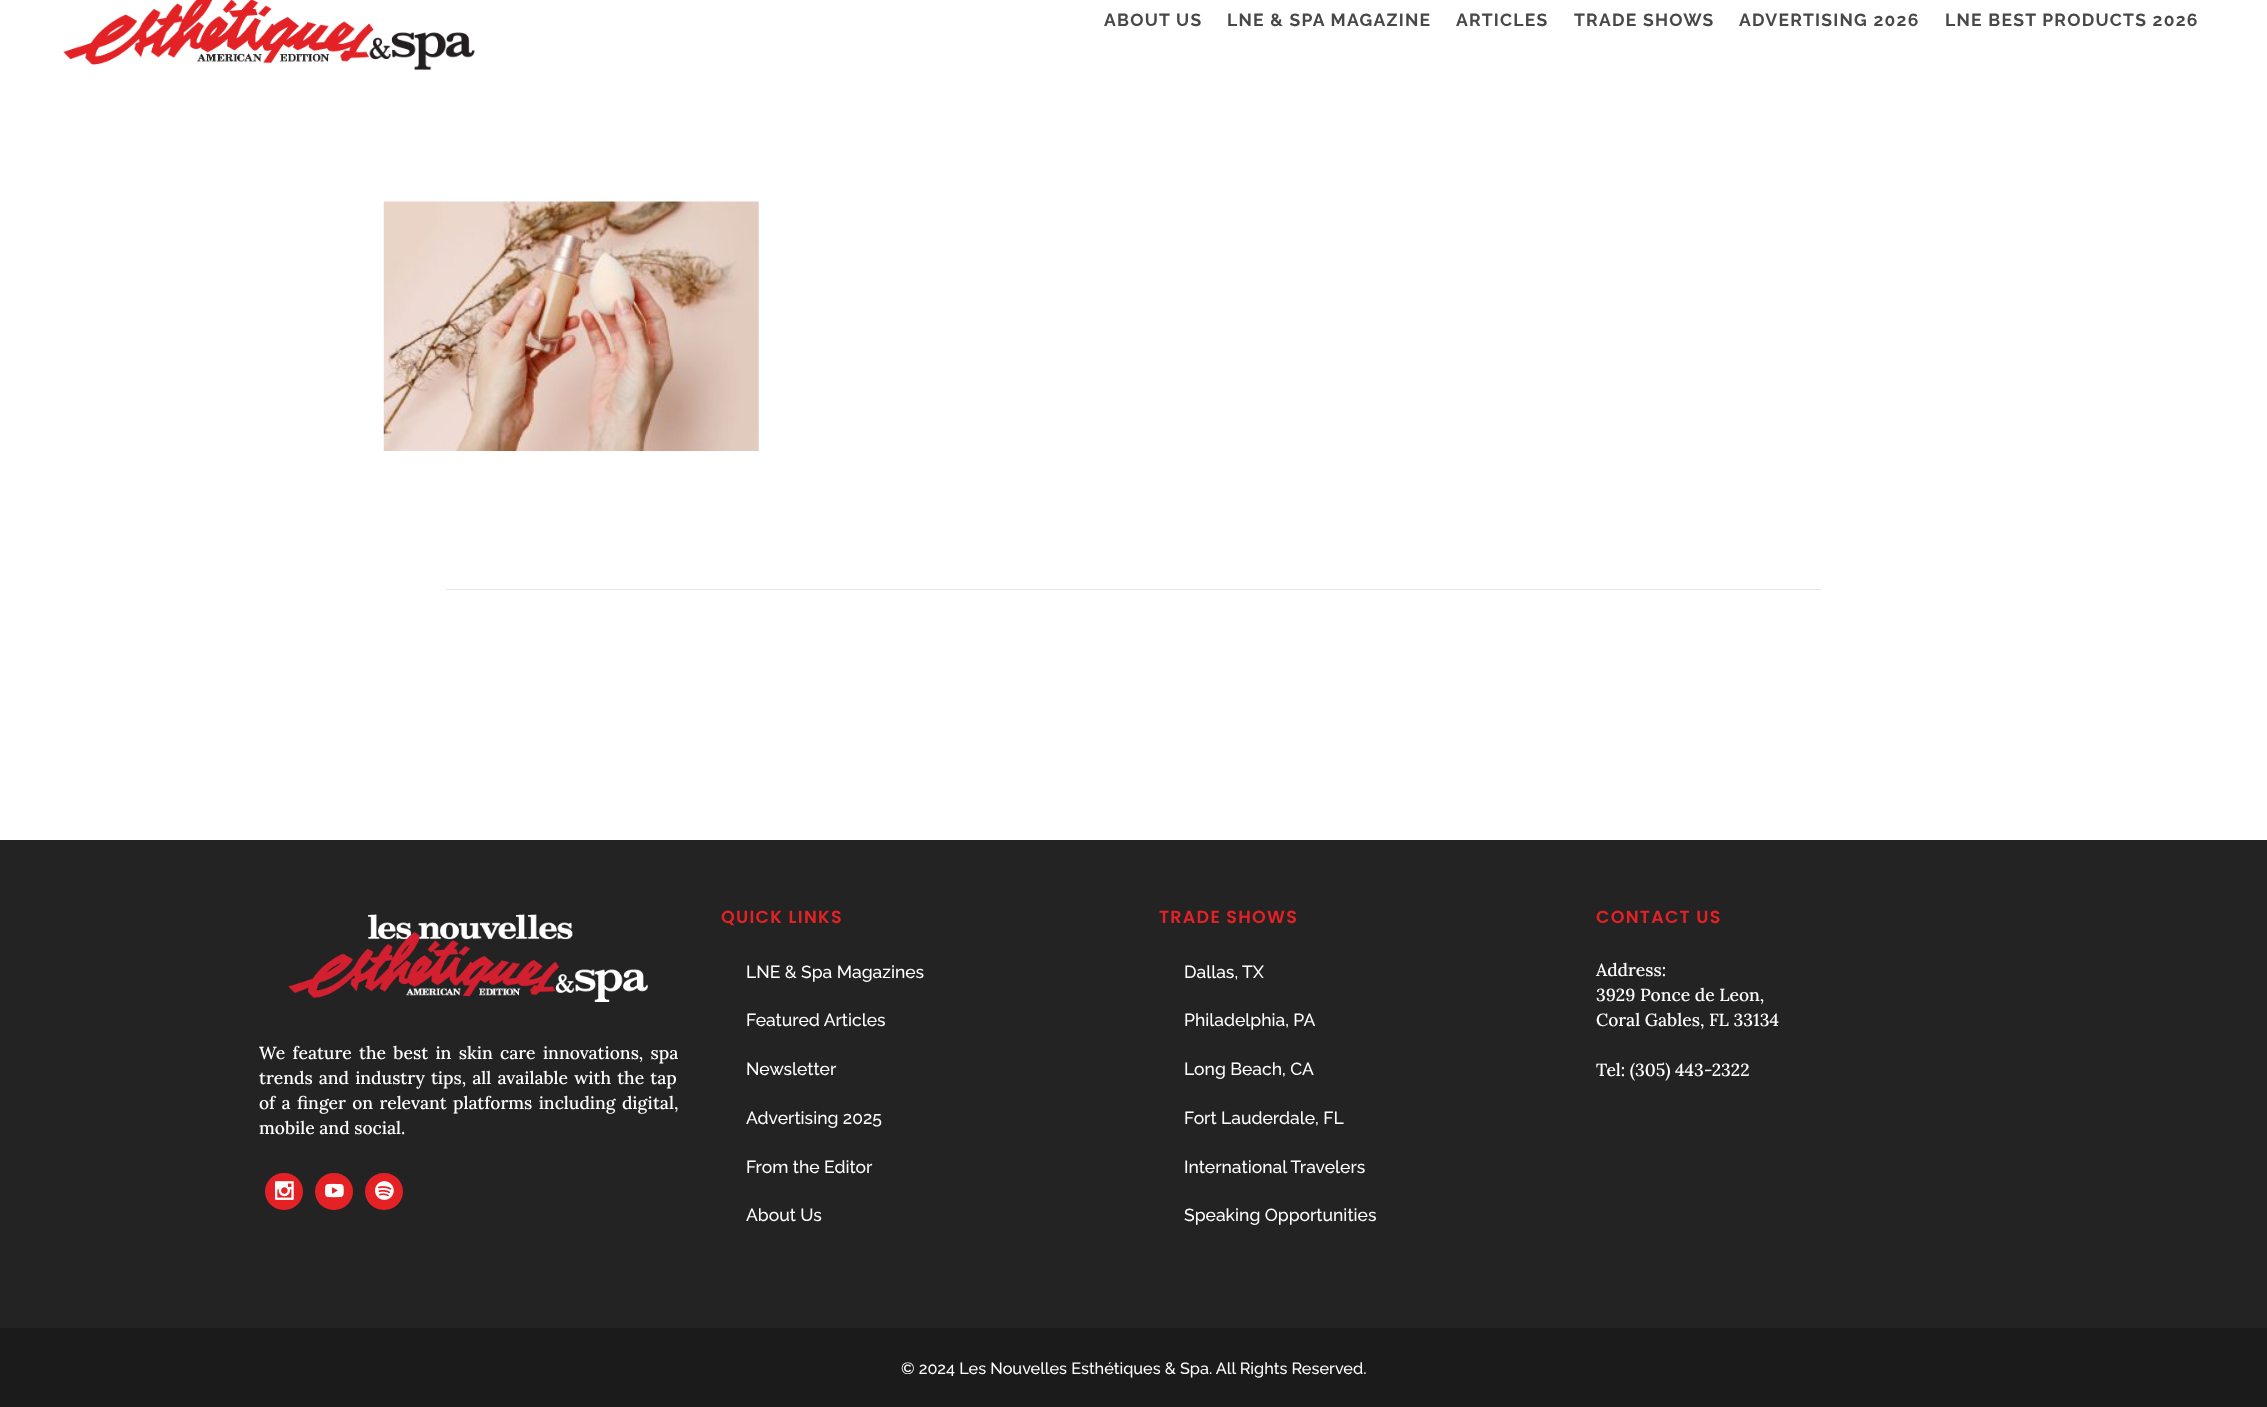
async function draw(canvas) {
  canvas.width = 2267
  canvas.height = 1407
  const ctx = canvas.getContext('2d')
  ctx.miterLimit = 4
  ctx.fontKerning = 'normal'
  async function loadImage(src) {
    const img = new Image()
    img.src = src
    await img.decode()
    return img
  }

  ctx.fillStyle = '#fff'
  ctx.fillRect(0, 0, 2267, 1407)
  ctx.drawImage(await loadImage('image0.png'), 63, 0, 412, 70)
  ctx.letterSpacing = '1.25px'
  ctx.font = 'bold 17.5px Raleway'
  ctx.fillStyle = '#484848'
  ctx.fillText('ABOUT US', 1104, 26)
  ctx.fillText('LNE & SPA MAGAZINE', 1227, 26)
  ctx.fillText('ARTICLES', 1456, 26)
  ctx.fillText('TRADE SHOWS', 1574, 26)
  ctx.fillText('ADVERTISING 2026', 1739, 26)
  ctx.fillText('LNE BEST PRODUCTS 2026', 1945, 26)
  ctx.drawImage(await loadImage('image1.png'), 383, 201, 376, 250)
  ctx.fillStyle = '#e5e5e5'
  ctx.fillRect(446, 589, 1375, 1)
  ctx.fillStyle = '#232323'
  ctx.fillRect(0, 840, 2267, 488)
  ctx.font = '600 17.5px Poppins'
  ctx.fillStyle = '#e42226'
  ctx.fillText('QUICK LINKS', 721, 923)
  ctx.letterSpacing = '0px'
  ctx.font = '500 17.5px Raleway'
  ctx.fillStyle = '#fff'
  ctx.fillText('LNE & Spa Magazines', 746, 978)
  ctx.fillText('Featured Articles', 746, 1026)
  ctx.fillText('Newsletter', 746, 1075)
  ctx.fillText('Advertising 2025', 746, 1124)
  ctx.fillText('From the Editor', 746, 1173)
  ctx.fillText('About Us', 746, 1221)
  ctx.letterSpacing = '1.25px'
  ctx.font = '600 17.5px Poppins'
  ctx.fillStyle = '#e42226'
  ctx.fillText('TRADE SHOWS', 1159, 923)
  ctx.letterSpacing = '0px'
  ctx.font = '500 17.5px Raleway'
  ctx.fillStyle = '#fff'
  ctx.fillText('Dallas, TX', 1184, 978)
  ctx.fillText('Philadelphia, PA', 1184, 1026)
  ctx.fillText('Long Beach, CA', 1184, 1075)
  ctx.fillText('Fort Lauderdale, FL', 1184, 1124)
  ctx.fillText('International Travelers', 1184, 1173)
  ctx.fillText('Speaking Opportunities', 1184, 1221)
  ctx.letterSpacing = '1.25px'
  ctx.font = '600 17.5px Poppins'
  ctx.fillStyle = '#e42226'
  ctx.fillText('CONTACT US', 1596, 923)
  ctx.letterSpacing = '0px'
  ctx.font = '500 17.5px Lora'
  ctx.fillStyle = '#fff'
  ctx.fillText('Address:', 1596, 976)
  ctx.fillText('3929 Ponce de Leon,', 1596, 1001)
  ctx.fillText('Coral Gables, FL 33134', 1596, 1026)
  ctx.fillText('Tel: (305) 443-2322', 1596, 1076)
  ctx.drawImage(await loadImage('image2.png'), 288, 914, 360, 88)
  ctx.wordSpacing = '2.75px'
  ctx.fillText('We feature the best in skin care innovations, spa', 259, 1059)
  ctx.wordSpacing = '1.5px'
  ctx.fillText('trends and industry tips, all available with the tap', 259, 1084)
  ctx.wordSpacing = '1.75px'
  ctx.fillText('of a finger on relevant platforms including digital,', 259, 1109)
  ctx.wordSpacing = '0px'
  ctx.fillText('mobile and social.', 259, 1134)
  ctx.fillStyle = '#e42226'
  ctx.beginPath()
  ctx.roundRect(265, 1173, 38, 37, 18.5)
  ctx.fill()
  ctx.drawImage(await loadImage('image3.png'), 275, 1181, 19, 19)
  ctx.beginPath()
  ctx.roundRect(315, 1173, 38, 37, 18.5)
  ctx.fill()
  ctx.drawImage(await loadImage('image4.png'), 325, 1183, 19, 15)
  ctx.beginPath()
  ctx.roundRect(365, 1173, 38, 37, 18.5)
  ctx.fill()
  ctx.drawImage(await loadImage('image5.png'), 375, 1181, 19, 19)
  ctx.fillStyle = '#1b1b1b'
  ctx.fillRect(0, 1328, 2267, 79)
  ctx.font = '500 16.25px Raleway'
  ctx.fillStyle = '#fff'
  ctx.fillText('© 2024 Les Nouvelles Esthétiques & Spa. All Rights Reserved.', 901, 1374)
}

draw(document.querySelector('canvas'))
